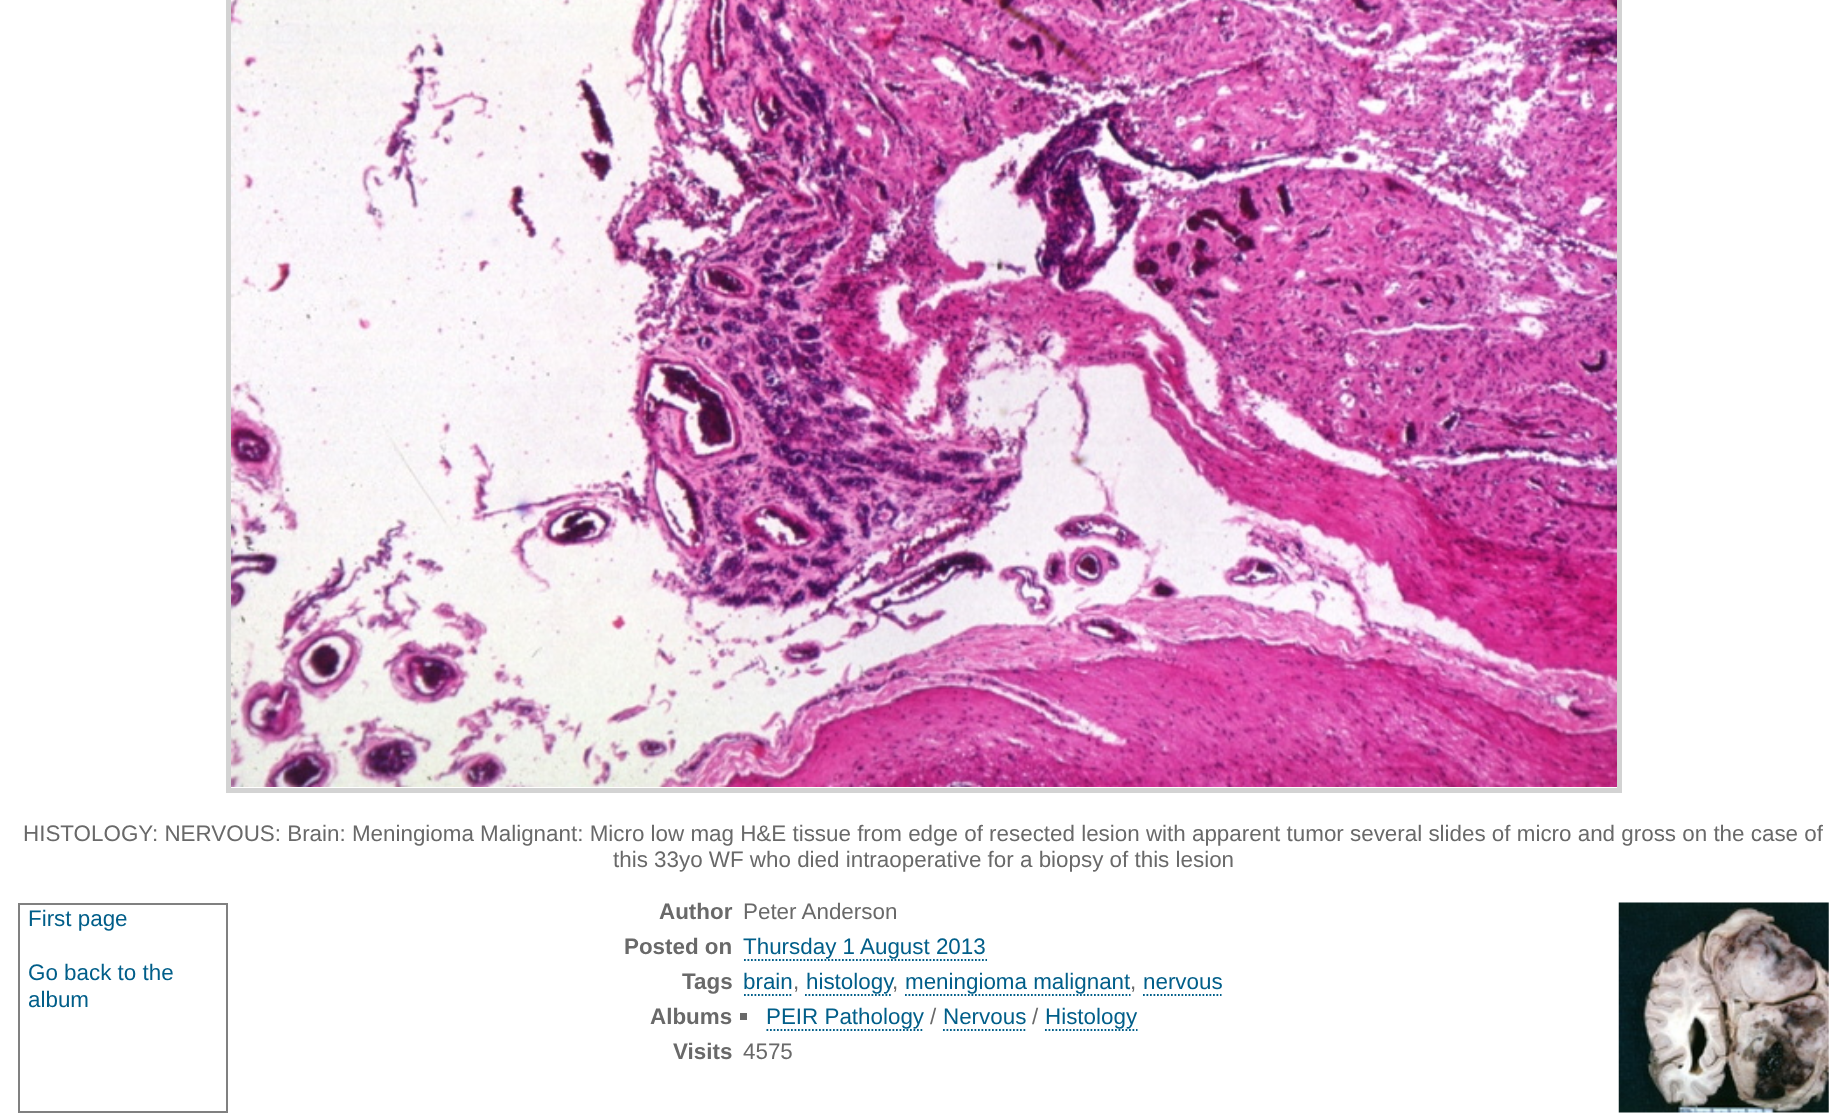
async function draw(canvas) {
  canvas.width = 1845
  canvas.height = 1116
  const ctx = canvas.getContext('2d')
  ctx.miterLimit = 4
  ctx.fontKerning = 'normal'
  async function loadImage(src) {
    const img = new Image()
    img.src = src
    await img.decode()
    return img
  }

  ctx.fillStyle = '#fff'
  ctx.fillRect(0, 0, 1845, 1116)
  ctx.strokeStyle = '#d3d3d3'
  ctx.lineWidth = 5
  ctx.strokeRect(228.5, -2.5, 1391, 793)
  ctx.drawImage(await loadImage('image0.png'), 231, 0, 1386, 787)
  ctx.font = '22.4px Liberation Sans'
  ctx.fillStyle = '#696969'
  ctx.fillText('HISTOLOGY: NERVOUS: Brain: Meningioma Malignant: Micro low mag H&E tissue from edge of resected lesion with apparent tumor several slides of micro and gross on the case of', 23, 841)
  ctx.fillText('this 33yo WF who died intraoperative for a biopsy of this lesion', 613, 867)
  ctx.strokeStyle = '#808080'
  ctx.lineWidth = 2
  ctx.strokeRect(19, 904, 208, 208)
  ctx.fillStyle = '#005e89'
  ctx.fillText('First page', 28, 926)
  ctx.fillText('Go back to the', 28, 980)
  ctx.fillText('album', 28, 1007)
  ctx.drawImage(await loadImage('image1.png'), 1618, 902, 211, 211)
  ctx.font = 'bold 22.4px Liberation Sans'
  ctx.fillStyle = '#696969'
  ctx.fillText('Author', 659, 919)
  ctx.font = '22.4px Liberation Sans'
  ctx.fillText('Peter Anderson', 743, 919)
  ctx.font = 'bold 22.4px Liberation Sans'
  ctx.fillText('Posted on', 624, 954)
  ctx.font = '22.4px Liberation Sans'
  ctx.fillStyle = '#005e89'
  ctx.fillText('Thursday 1 August 2013', 743, 954)
  ctx.beginPath()
  ctx.moveTo(744, 960)
  ctx.lineTo(987, 960)
  ctx.strokeStyle = '#005e89'
  ctx.lineWidth = 1.8
  ctx.setLineDash([1.75, 1.75])
  ctx.stroke()
  ctx.font = 'bold 22.4px Liberation Sans'
  ctx.fillStyle = '#696969'
  ctx.fillText('Tags', 682, 989)
  ctx.font = '22.4px Liberation Sans'
  ctx.fillStyle = '#005e89'
  ctx.fillText('brain', 743, 989)
  ctx.beginPath()
  ctx.moveTo(744, 995)
  ctx.lineTo(793, 995)
  ctx.stroke()
  ctx.fillStyle = '#696969'
  ctx.fillText(',', 793, 989)
  ctx.fillStyle = '#005e89'
  ctx.fillText('histology', 806, 989)
  ctx.beginPath()
  ctx.moveTo(805, 995)
  ctx.lineTo(892.5, 995)
  ctx.stroke()
  ctx.fillStyle = '#696969'
  ctx.fillText(',', 892, 989)
  ctx.fillStyle = '#005e89'
  ctx.fillText('meningioma malignant', 905, 989)
  ctx.beginPath()
  ctx.moveTo(905, 995)
  ctx.lineTo(1130.5, 995)
  ctx.stroke()
  ctx.fillStyle = '#696969'
  ctx.fillText(',', 1130, 989)
  ctx.fillStyle = '#005e89'
  ctx.fillText('nervous', 1143, 989)
  ctx.beginPath()
  ctx.moveTo(1143, 995)
  ctx.lineTo(1221.5, 995)
  ctx.stroke()
  ctx.font = 'bold 22.4px Liberation Sans'
  ctx.fillStyle = '#696969'
  ctx.fillText('Albums', 650, 1024)
  ctx.fillRect(740, 1013, 7, 7)
  ctx.font = '22.4px Liberation Sans'
  ctx.fillStyle = '#005e89'
  ctx.fillText('PEIR Pathology', 766, 1024)
  ctx.beginPath()
  ctx.moveTo(766.5, 1030)
  ctx.lineTo(924, 1030)
  ctx.stroke()
  ctx.fillStyle = '#696969'
  ctx.fillText('/', 930, 1024)
  ctx.fillStyle = '#005e89'
  ctx.fillText('Nervous', 943, 1024)
  ctx.beginPath()
  ctx.moveTo(943, 1030)
  ctx.lineTo(1025.5, 1030)
  ctx.stroke()
  ctx.fillStyle = '#696969'
  ctx.fillText('/', 1032, 1024)
  ctx.fillStyle = '#005e89'
  ctx.fillText('Histology', 1045, 1024)
  ctx.beginPath()
  ctx.moveTo(1045, 1030)
  ctx.lineTo(1137.5, 1030)
  ctx.stroke()
  ctx.font = 'bold 22.4px Liberation Sans'
  ctx.fillStyle = '#696969'
  ctx.fillText('Visits', 673, 1059)
  ctx.font = '22.4px Liberation Sans'
  ctx.fillText('4575', 743, 1059)
}

draw(document.querySelector('canvas'))
